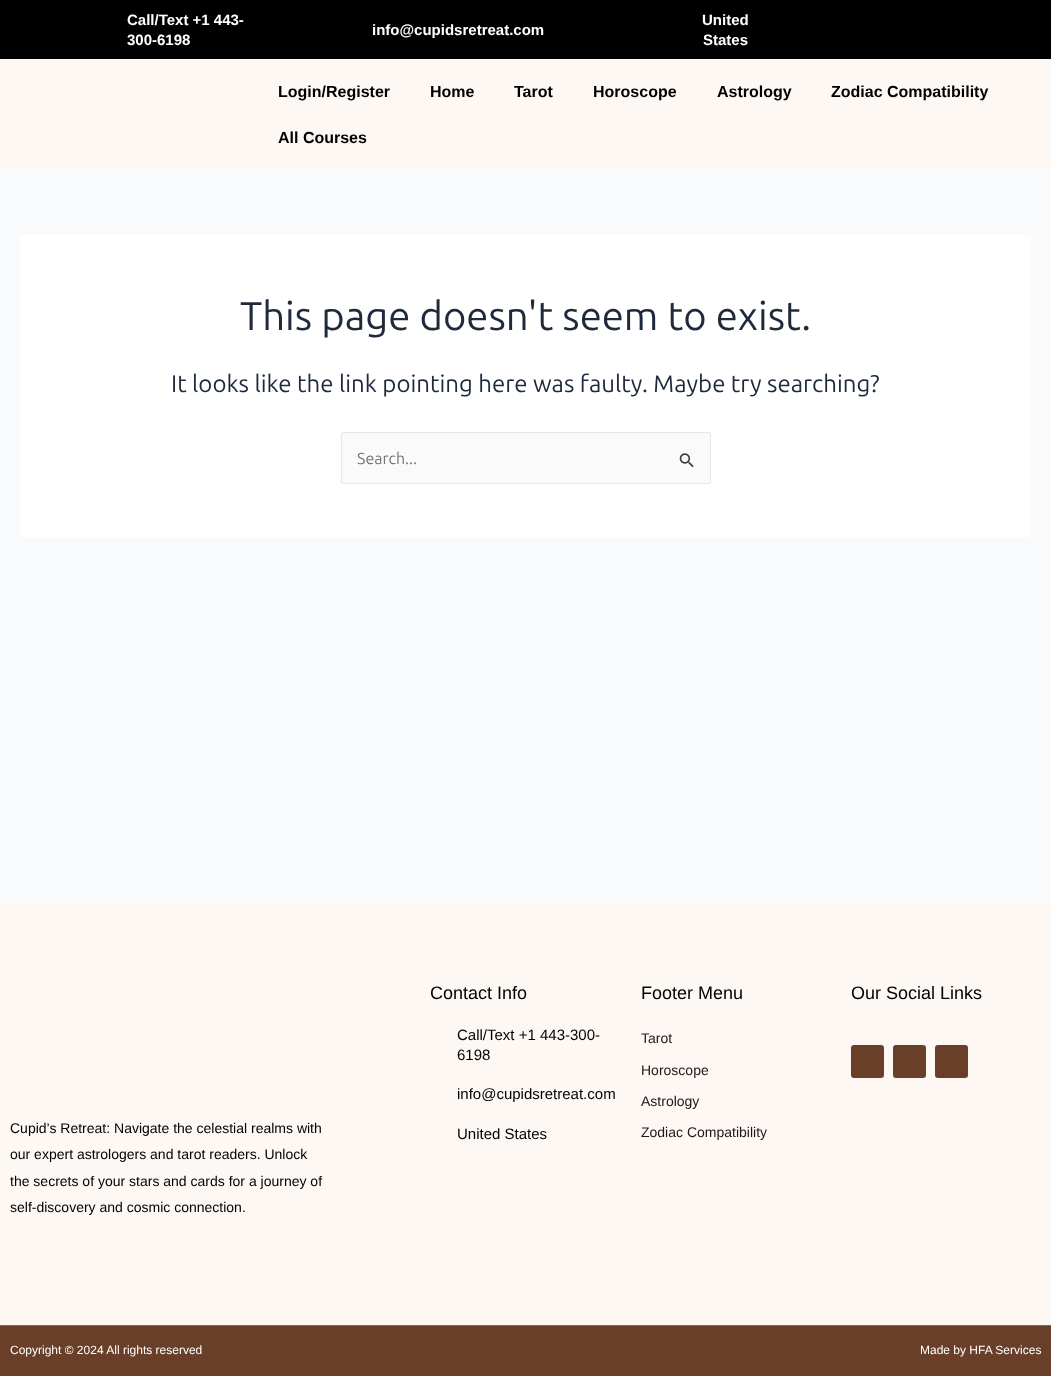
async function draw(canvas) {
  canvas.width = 1051
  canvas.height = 1376
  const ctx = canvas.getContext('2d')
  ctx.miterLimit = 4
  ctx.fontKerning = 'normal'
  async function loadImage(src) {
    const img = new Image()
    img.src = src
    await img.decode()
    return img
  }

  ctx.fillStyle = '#f9fafb'
  ctx.fillRect(0, 0, 1051, 1376)
  ctx.fillStyle = '#000'
  ctx.fillRect(0, 0, 1051, 59)
  ctx.font = 'bold 15px Liberation Sans'
  ctx.fillStyle = '#fff'
  ctx.fillText('Call/Text +1 443-', 127, 25)
  ctx.fillText('300-6198', 127, 45)
  ctx.fillText('info@cupidsretreat.com', 372, 35)
  ctx.fillText('United', 702, 25)
  ctx.fillText('States', 703, 45)
  ctx.fillStyle = '#fdf8f4'
  ctx.fillRect(0, 59, 1051, 112)
  ctx.font = 'bold 16px Liberation Sans'
  ctx.fillStyle = '#000'
  ctx.fillText('Login/Register', 278, 97)
  ctx.fillText('Home', 430, 97)
  ctx.fillText('Tarot', 514, 97)
  ctx.fillText('Horoscope', 593, 97)
  ctx.fillText('Astrology', 717, 97)
  ctx.fillText('Zodiac Compatibility', 831, 97)
  ctx.fillText('All Courses', 278, 143)
  ctx.fillStyle = '#fff'
  ctx.fillRect(20, 235, 1011, 302)
  ctx.font = '40px Ubuntu'
  ctx.fillStyle = '#1e293b'
  ctx.fillText('This page doesn\'t seem to exist.', 240, 330)
  ctx.font = '24px Ubuntu'
  ctx.fillText('It looks like the link pointing here was faulty. Maybe try searching?', 171, 392)
  ctx.fillStyle = '#fafafa'
  ctx.beginPath()
  ctx.roundRect(341.5, 432.5, 369, 51, 1.5)
  ctx.fill()
  ctx.strokeStyle = '#e2e8f0'
  ctx.stroke()
  ctx.font = '16px Ubuntu'
  ctx.fillStyle = '#757575'
  ctx.fillText('Search...', 357, 464)
  ctx.drawImage(await loadImage('image0.png'), 679, 453, 15, 15)
  ctx.fillStyle = '#fdf8f4'
  ctx.fillRect(0, 902, 1051, 423)
  ctx.font = '18px Liberation Sans'
  ctx.fillStyle = '#000'
  ctx.fillText('Contact Info', 430, 999)
  ctx.font = '15px Liberation Sans'
  ctx.fillText('Call/Text +1 443-300-', 457, 1040)
  ctx.fillText('6198', 457, 1060)
  ctx.fillText('info@cupidsretreat.com', 457, 1099)
  ctx.fillText('United States', 457, 1139)
  ctx.font = '18px Liberation Sans'
  ctx.fillText('Footer Menu', 641, 999)
  ctx.font = '14px Liberation Sans'
  ctx.fillStyle = '#1d1717'
  ctx.fillText('Tarot', 641, 1043)
  ctx.fillText('Horoscope', 641, 1075)
  ctx.fillText('Astrology', 641, 1106)
  ctx.fillText('Zodiac Compatibility', 641, 1137)
  ctx.font = '18px Liberation Sans'
  ctx.fillStyle = '#000'
  ctx.fillText('Our Social Links', 851, 999)
  ctx.fillStyle = '#693f29'
  ctx.beginPath()
  ctx.roundRect(851, 1045, 33, 33, 3)
  ctx.fill()
  ctx.beginPath()
  ctx.roundRect(893, 1045, 33, 33, 3)
  ctx.fill()
  ctx.beginPath()
  ctx.roundRect(935, 1045, 33, 33, 3)
  ctx.fill()
  ctx.font = '14px Liberation Sans'
  ctx.fillStyle = '#000'
  ctx.fillText('Cupid’s Retreat: Navigate the celestial realms with', 10, 1133)
  ctx.fillText('our expert astrologers and tarot readers. Unlock', 10, 1159)
  ctx.fillText('the secrets of your stars and cards for a journey of', 10, 1186)
  ctx.fillText('self-discovery and cosmic connection.', 10, 1212)
  ctx.fillStyle = '#693f29'
  ctx.fillRect(0, 1326, 1051, 50)
  ctx.fillStyle = '#866352'
  ctx.fillRect(0, 1325, 1051, 1)
  ctx.font = '12px Liberation Sans'
  ctx.fillStyle = '#fff'
  ctx.fillText('Copyright © 2024 All rights reserved', 10, 1354)
  ctx.fillText('Made by HFA Services', 920, 1354)
}

draw(document.querySelector('canvas'))
